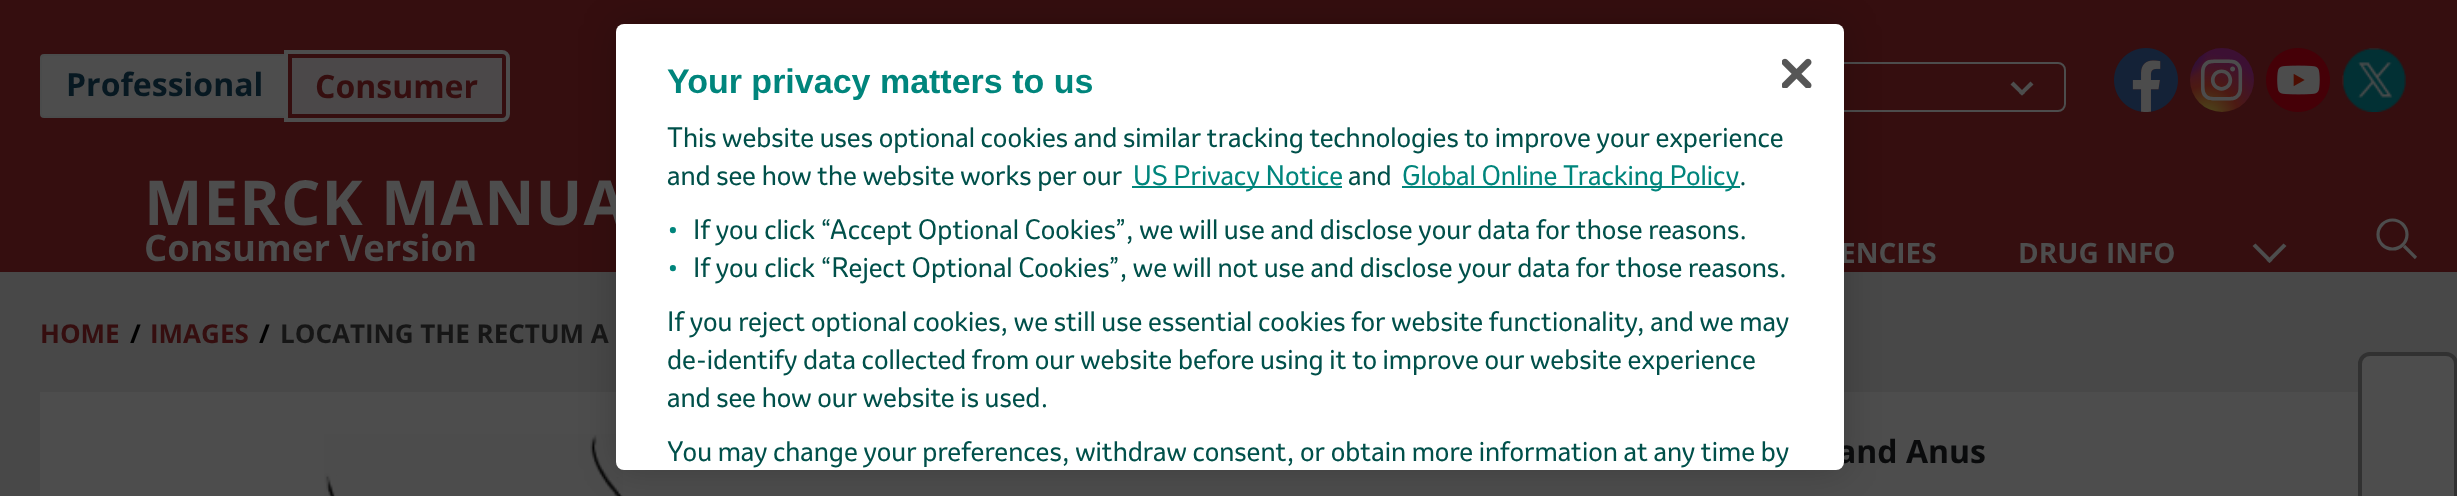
async function draw(canvas) {
  canvas.width = 2457
  canvas.height = 496
  const ctx = canvas.getContext('2d')
  ctx.miterLimit = 4
  ctx.fontKerning = 'normal'
  async function loadImage(src) {
    const img = new Image()
    img.src = src
    await img.decode()
    return img
  }

  ctx.fillStyle = '#484848'
  ctx.fillRect(0, 0, 2457, 496)
  ctx.fillStyle = '#350e0f'
  ctx.fillRect(0, 0, 2457, 272)
  ctx.beginPath()
  ctx.roundRect(1617, 63, 448, 48, 7)
  ctx.strokeStyle = '#4d4d4d'
  ctx.lineWidth = 2
  ctx.stroke()
  ctx.fillStyle = '#4d4d4d'
  ctx.fillRect(40, 392, 2318, 104)
  ctx.drawImage(await loadImage('image5.png'), 324, 434, 299, 62)
  ctx.fillStyle = '#00000033'
  ctx.filter = 'blur(18px)'
  ctx.beginPath()
  ctx.roundRect(616, 24, 1228, 446, 8)
  ctx.fill()
  ctx.filter = 'none'
  ctx.letterSpacing = '1px'
  ctx.font = 'bold 62px Open Sans'
  ctx.fillStyle = '#4d4d4d'
  ctx.fillText('MERCK MANUA', 144, 225)
  ctx.letterSpacing = '0px'
  ctx.font = 'bold 28px Open Sans'
  ctx.fillText('ENCIES', 1840, 263)
  ctx.font = 'bold 32px Open Sans'
  ctx.fillStyle = '#0a0b0c'
  ctx.fillText('and Anus', 1837, 463)
  ctx.fillStyle = '#fff'
  ctx.beginPath()
  ctx.roundRect(616, 24, 1228, 446, 8)
  ctx.fill()
  ctx.font = 'bold 34px Liberation Sans'
  ctx.fillStyle = '#00857c'
  ctx.fillText('Your privacy matters to us', 667, 93)
  ctx.font = '26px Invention'
  ctx.fillStyle = '#00504a'
  ctx.fillText('This website uses optional cookies and similar tracking technologies to improve your experience', 667, 147)
  ctx.fillText('and see how the website works per our', 667, 185)
  ctx.fillStyle = '#00857c'
  ctx.fillRect(1132, 186, 210, 2)
  ctx.fillText('US Privacy Notice', 1133, 185)
  ctx.fillStyle = '#00504a'
  ctx.fillText('and', 1348, 185)
  ctx.fillStyle = '#00857c'
  ctx.fillRect(1402, 186, 338, 2)
  ctx.fillText('Global Online Tracking Policy', 1402, 185)
  ctx.fillStyle = '#00504a'
  ctx.fillText('.', 1739, 185)
  ctx.font = '31px Invention'
  ctx.fillStyle = '#00857c'
  ctx.fillText('•', 667, 239)
  ctx.font = '26px Invention'
  ctx.fillStyle = '#00504a'
  ctx.fillText('If you click “Accept Optional Cookies”, we will use and disclose your data for those reasons.', 693, 239)
  ctx.font = '31px Invention'
  ctx.fillStyle = '#00857c'
  ctx.fillText('•', 667, 277)
  ctx.font = '26px Invention'
  ctx.fillStyle = '#00504a'
  ctx.fillText('If you click “Reject Optional Cookies”, we will not use and disclose your data for those reasons.', 693, 277)
  ctx.fillText('If you reject optional cookies, we still use essential cookies for website functionality, and we may', 667, 331)
  ctx.fillText('de-identify data collected from our website before using it to improve our website experience', 667, 369)
  ctx.fillText('and see how our website is used.', 667, 407)
  ctx.fillText('You may change your preferences, withdraw consent, or obtain more information at any time by', 667, 461)
  ctx.drawImage(await loadImage('image0.png'), 1782, 58, 30, 30)
  ctx.fillStyle = '#4d4d4d'
  ctx.beginPath()
  ctx.roundRect(41, 55, 248, 62, [3, 0, 0, 3])
  ctx.fill()
  ctx.strokeStyle = '#4a4b4b'
  ctx.stroke()
  ctx.font = 'bold 32px Open Sans'
  ctx.fillStyle = '#071821'
  ctx.fillText('Professional', 66, 96)
  ctx.fillStyle = '#4b4849'
  ctx.beginPath()
  ctx.roundRect(290, 56, 214, 60, [0, 2, 2, 0])
  ctx.fill()
  ctx.strokeStyle = '#350e0f'
  ctx.lineWidth = 4
  ctx.stroke()
  ctx.beginPath()
  ctx.roundRect(286, 52, 222, 68, [0, 6, 6, 0])
  ctx.strokeStyle = '#4d4d4d'
  ctx.stroke()
  ctx.fillStyle = '#350e0f'
  ctx.fillText('Consumer', 315, 98)
  ctx.fillStyle = '#4d4d4d'
  ctx.beginPath()
  ctx.moveTo(2030.5, 81.5)
  ctx.lineTo(2033.5, 84.5)
  ctx.lineTo(2022, 95.5)
  ctx.lineTo(2019, 93)
  ctx.closePath()
  ctx.fill()
  ctx.beginPath()
  ctx.moveTo(2013.5, 81.5)
  ctx.lineTo(2025, 93)
  ctx.lineTo(2022, 95.5)
  ctx.lineTo(2010.5, 84.5)
  ctx.closePath()
  ctx.fill()
  ctx.drawImage(await loadImage('image1.png'), 2114, 48, 64, 64)
  ctx.drawImage(await loadImage('image2.png'), 2190, 48, 64, 64)
  ctx.drawImage(await loadImage('image3.png'), 2266, 48, 64, 64)
  ctx.drawImage(await loadImage('image4.png'), 2342, 48, 64, 64)
  ctx.font = 'bold 36.5px Open Sans'
  ctx.fillText('Consumer Version', 144, 261)
  ctx.font = 'bold 28px Open Sans'
  ctx.fillText('DRUG INFO', 2018, 263)
  ctx.beginPath()
  ctx.moveTo(2283.5, 243.5)
  ctx.lineTo(2286.5, 246)
  ctx.lineTo(2269.5, 263)
  ctx.lineTo(2266.5, 260.5)
  ctx.closePath()
  ctx.fill()
  ctx.beginPath()
  ctx.moveTo(2255.5, 243.5)
  ctx.lineTo(2272.5, 260.5)
  ctx.lineTo(2269.5, 263)
  ctx.lineTo(2252.5, 246)
  ctx.closePath()
  ctx.fill()
  ctx.beginPath()
  ctx.arc(2392.5, 234.5, 14.5, 0, 2 * Math.PI)
  ctx.lineWidth = 3.2
  ctx.stroke()
  ctx.beginPath()
  ctx.moveTo(2416, 258)
  ctx.lineTo(2404, 246)
  ctx.stroke()
  ctx.font = 'bold 26px Open Sans'
  ctx.fillStyle = '#350e0f'
  ctx.fillText('HOME', 40, 343)
  ctx.fillStyle = '#000'
  ctx.fillText('/', 130, 343)
  ctx.fillStyle = '#350e0f'
  ctx.fillText('IMAGES', 150, 343)
  ctx.fillStyle = '#000'
  ctx.fillText('/', 259, 343)
  ctx.fillStyle = '#161616'
  ctx.fillText('LOCATING THE RECTUM A', 280, 343)
  ctx.fillStyle = '#4d4d4d'
  ctx.beginPath()
  ctx.roundRect(2360, 354, 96, 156, 10)
  ctx.fill()
  ctx.strokeStyle = '#313131'
  ctx.lineWidth = 4
  ctx.stroke()
}

draw(document.querySelector('canvas'))
